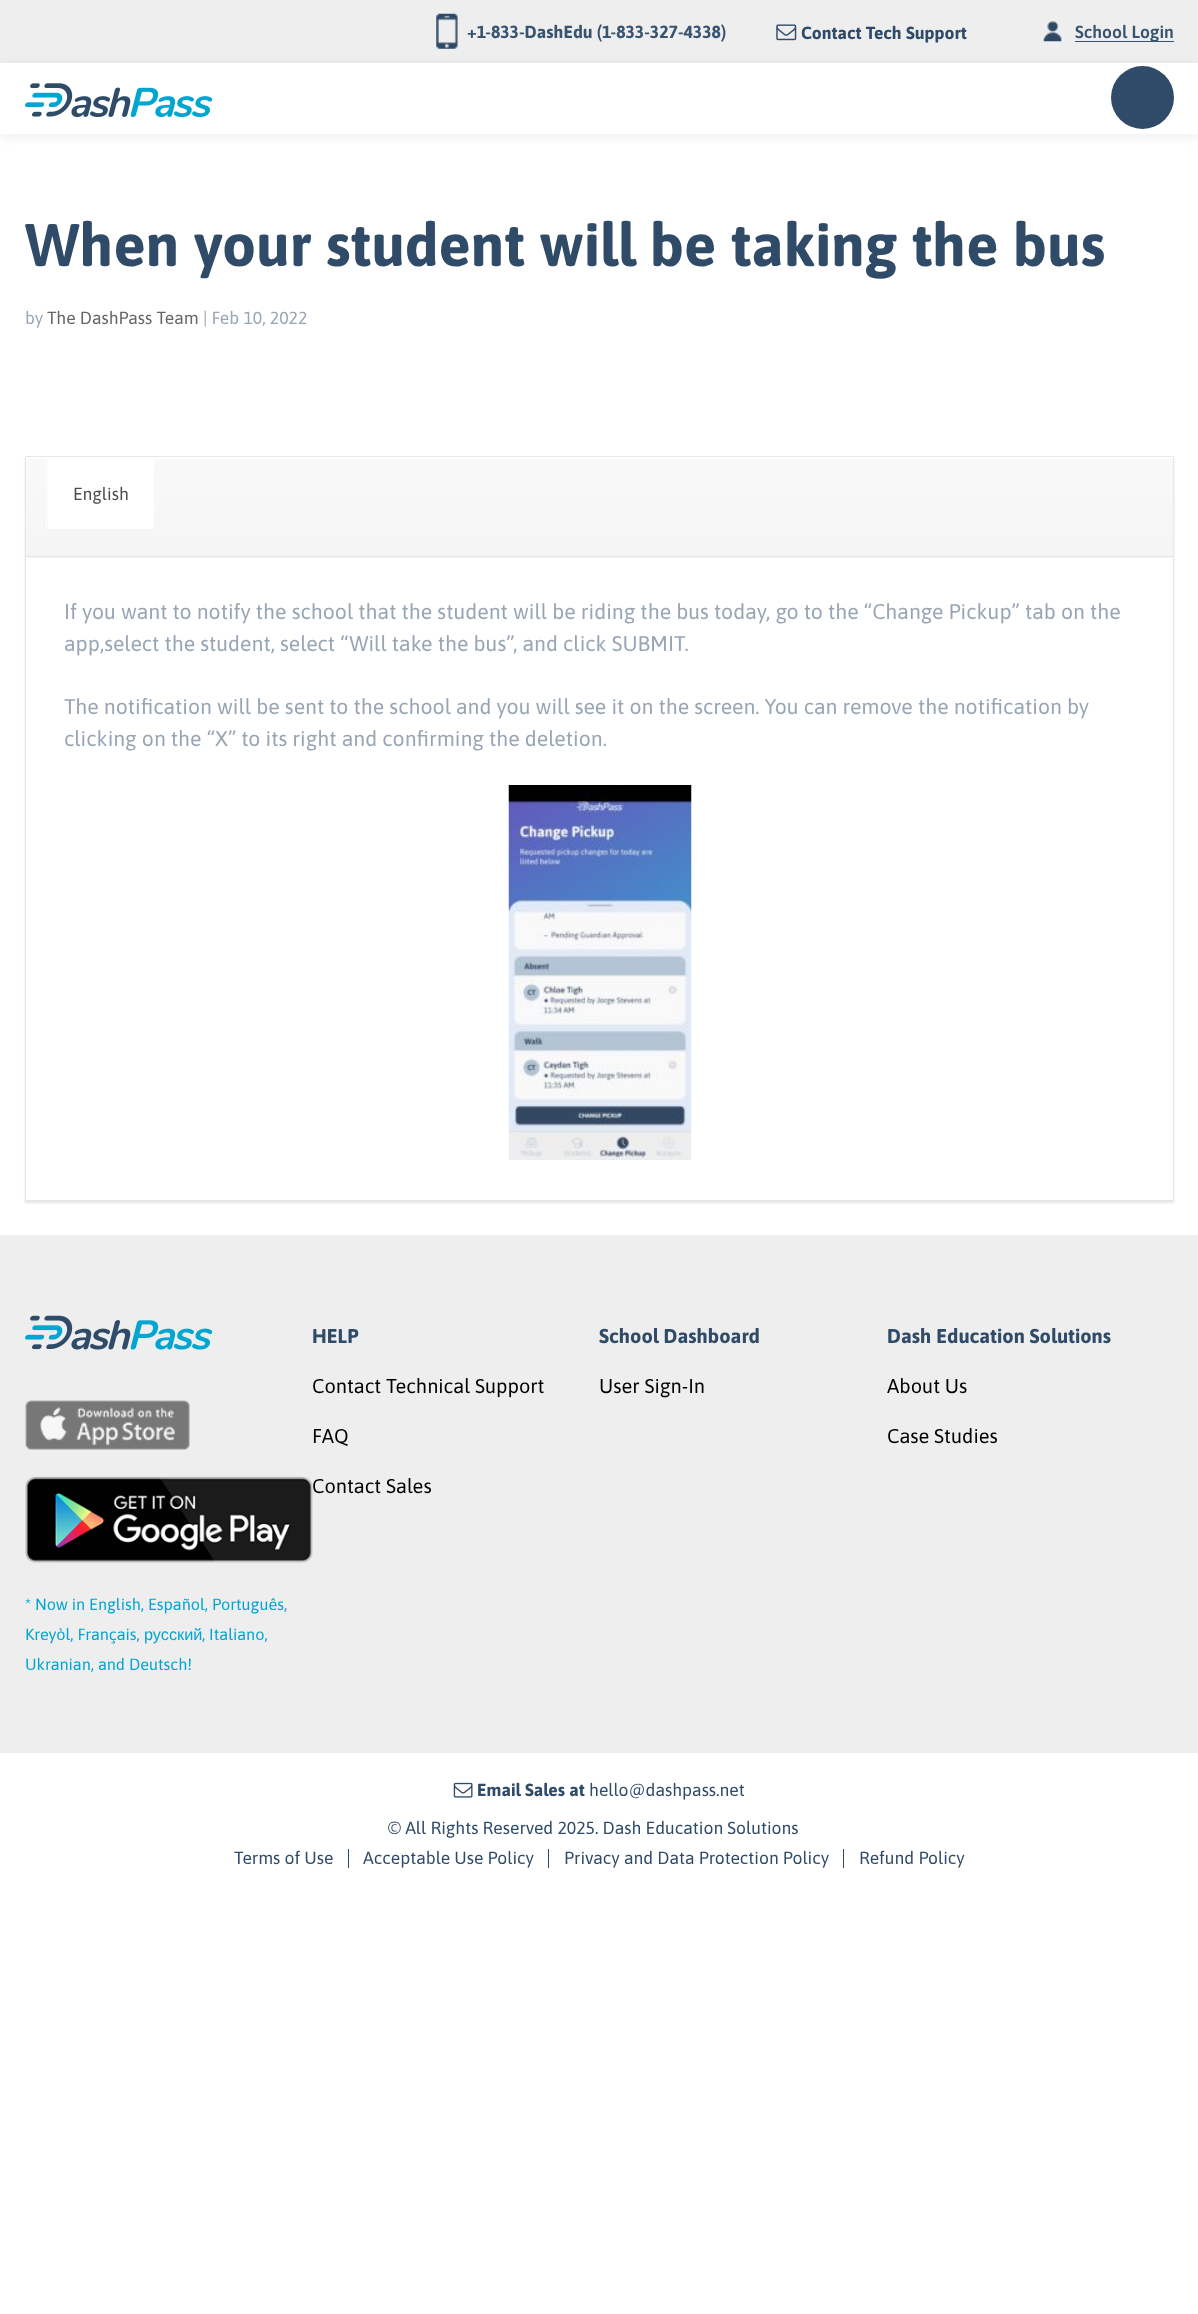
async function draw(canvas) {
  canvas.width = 1198
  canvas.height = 2314
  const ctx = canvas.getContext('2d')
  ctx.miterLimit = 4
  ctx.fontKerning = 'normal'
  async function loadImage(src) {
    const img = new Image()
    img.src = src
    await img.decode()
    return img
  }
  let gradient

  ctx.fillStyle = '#fff'
  ctx.fillRect(0, 0, 1198, 2314)
  ctx.fillStyle = '#eee'
  ctx.fillRect(0, 0, 1198, 63)
  ctx.drawImage(await loadImage('image0.png'), 436, 13, 22, 36)
  ctx.font = 'bold 17.5px Asap'
  ctx.fillStyle = '#395470'
  ctx.fillText('+1-833-DashEdu (1-833-327-4338)', 467, 38)
  ctx.drawImage(await loadImage('image1.png'), 776, 24, 21, 17)
  ctx.fillStyle = '#2f4b68'
  ctx.fillText('Contact Tech Support', 801, 39)
  ctx.drawImage(await loadImage('image2.png'), 1043, 21, 19, 21)
  ctx.font = '600 17.5px Asap'
  ctx.fillStyle = '#395470'
  ctx.fillText('School Login', 1075, 38)
  ctx.fillRect(1075, 41, 99, 1)
  ctx.fillStyle = '#d7d7d780'
  ctx.filter = 'blur(6px)'
  ctx.beginPath()
  ctx.rect(0, 65, 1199, 71)
  ctx.fill()
  ctx.filter = 'none'
  ctx.fillStyle = '#fff'
  ctx.fillRect(0, 63, 1198, 71)
  ctx.drawImage(await loadImage('image3.png'), 25, 83, 188, 35)
  ctx.fillStyle = '#304b68'
  ctx.beginPath()
  ctx.arc(1142.5, 97.5, 31.5, 0, 2 * Math.PI)
  ctx.fill()
  ctx.font = 'bold 60px Asap'
  ctx.fillStyle = '#2f4b68'
  ctx.fillText('When your student will be taking the bus', 25, 266)
  ctx.font = '17.5px Asap'
  ctx.fillStyle = '#97a5b4'
  ctx.fillText('by', 25, 324)
  ctx.fillStyle = '#666'
  ctx.fillText('The DashPass Team', 47, 324)
  ctx.fillStyle = '#97a5b4'
  ctx.fillText('| Feb 10, 2022', 203, 324)
  ctx.fillStyle = '#0000001a'
  ctx.filter = 'blur(1px)'
  ctx.beginPath()
  ctx.rect(25, 458, 1149, 745)
  ctx.fill()
  ctx.filter = 'none'
  ctx.fillStyle = '#fff'
  ctx.beginPath()
  ctx.rect(25.5, 456.5, 1148, 744)
  ctx.fill()
  ctx.strokeStyle = '#e7e7e7'
  ctx.stroke()
  gradient = ctx.createLinearGradient(599, 459, 599, 558)
  gradient.addColorStop(0, '#f9f9f9')
  gradient.addColorStop(1, '#f5f5f5')
  ctx.fillStyle = gradient
  ctx.fillRect(26, 459, 1147, 99)
  ctx.fillStyle = '#fff'
  ctx.fillRect(46, 459, 1, 70)
  ctx.fillRect(48, 459, 106, 70)
  ctx.fillStyle = '#4c4c4c'
  ctx.fillText('English', 73, 500)
  ctx.fillStyle = '#e7e7e7'
  ctx.fillRect(26, 556, 1147, 1)
  ctx.font = '21.25px Asap'
  ctx.fillStyle = '#97a5b4'
  ctx.fillText('If you want to notify the school that the student will be riding the bus today, go to the “Change Pickup” tab on the', 64, 619)
  ctx.fillText('app,select the student, select “Will take the bus”, and click SUBMIT.', 64, 651)
  ctx.fillText('The notification will be sent to the school and you will see it on the screen. You can remove the notification by', 64, 714)
  ctx.fillText('clicking on the “X” to its right and confirming the deletion.', 64, 746)
  ctx.drawImage(await loadImage('image4.png'), 508, 785, 184, 375)
  ctx.fillStyle = '#eee'
  ctx.fillRect(0, 1235, 1198, 518)
  ctx.font = 'bold 20px Asap'
  ctx.fillStyle = '#2f4b68'
  ctx.fillText('HELP', 312, 1343)
  ctx.font = '20px Asap'
  ctx.fillStyle = '#000'
  ctx.fillText('Contact Technical Support', 312, 1393)
  ctx.fillText('FAQ', 312, 1443)
  ctx.fillText('Contact Sales', 312, 1493)
  ctx.font = 'bold 20px Asap'
  ctx.fillStyle = '#2f4b68'
  ctx.fillText('School Dashboard', 599, 1343)
  ctx.font = '20px Asap'
  ctx.fillStyle = '#000'
  ctx.fillText('User Sign-In', 599, 1393)
  ctx.font = 'bold 20px Asap'
  ctx.fillStyle = '#2f4b68'
  ctx.fillText('Dash Education Solutions', 887, 1343)
  ctx.font = '20px Asap'
  ctx.fillStyle = '#000'
  ctx.fillText('About Us', 887, 1393)
  ctx.fillText('Case Studies', 887, 1443)
  ctx.drawImage(await loadImage('image5.png'), 25, 1315, 188, 35)
  ctx.drawImage(await loadImage('image6.png'), 25, 1400, 165, 50)
  ctx.drawImage(await loadImage('image7.png'), 25, 1476, 288, 87)
  ctx.font = '16.25px Asap'
  ctx.fillStyle = '#00a6d1'
  ctx.fillText('* Now in English, Español, Português,', 25, 1610)
  ctx.fillText('Kreyòl, Français,', 25, 1640)
  ctx.font = '16.25px Liberation Sans'
  ctx.fillText('русский', 144, 1640)
  ctx.font = '16.25px Asap'
  ctx.fillText(', Italiano,', 202, 1640)
  ctx.fillText('Ukranian, and Deutsch!', 25, 1670)
  ctx.drawImage(await loadImage('image8.png'), 453, 1782, 20, 16)
  ctx.font = 'bold 17.5px Asap'
  ctx.fillStyle = '#2f4b68'
  ctx.fillText('Email Sales at', 477, 1796)
  ctx.font = '17.5px Asap'
  ctx.fillText('hello@dashpass.net', 589, 1796)
  ctx.fillText('© All Rights Reserved 2025. Dash Education Solutions', 388, 1834)
  ctx.fillText('Terms of Use', 234, 1864)
  ctx.fillStyle = '#2e4b68'
  ctx.fillRect(348, 1849, 1, 19)
  ctx.fillStyle = '#2f4b68'
  ctx.fillText('Acceptable Use Policy', 363, 1864)
  ctx.fillStyle = '#2e4b68'
  ctx.fillRect(548, 1849, 1, 19)
  ctx.fillStyle = '#2f4b68'
  ctx.fillText('Privacy and Data Protection Policy', 564, 1864)
  ctx.fillStyle = '#2e4b68'
  ctx.fillRect(843, 1849, 1, 19)
  ctx.fillStyle = '#2f4b68'
  ctx.fillText('Refund Policy', 859, 1864)
}

draw(document.querySelector('canvas'))
